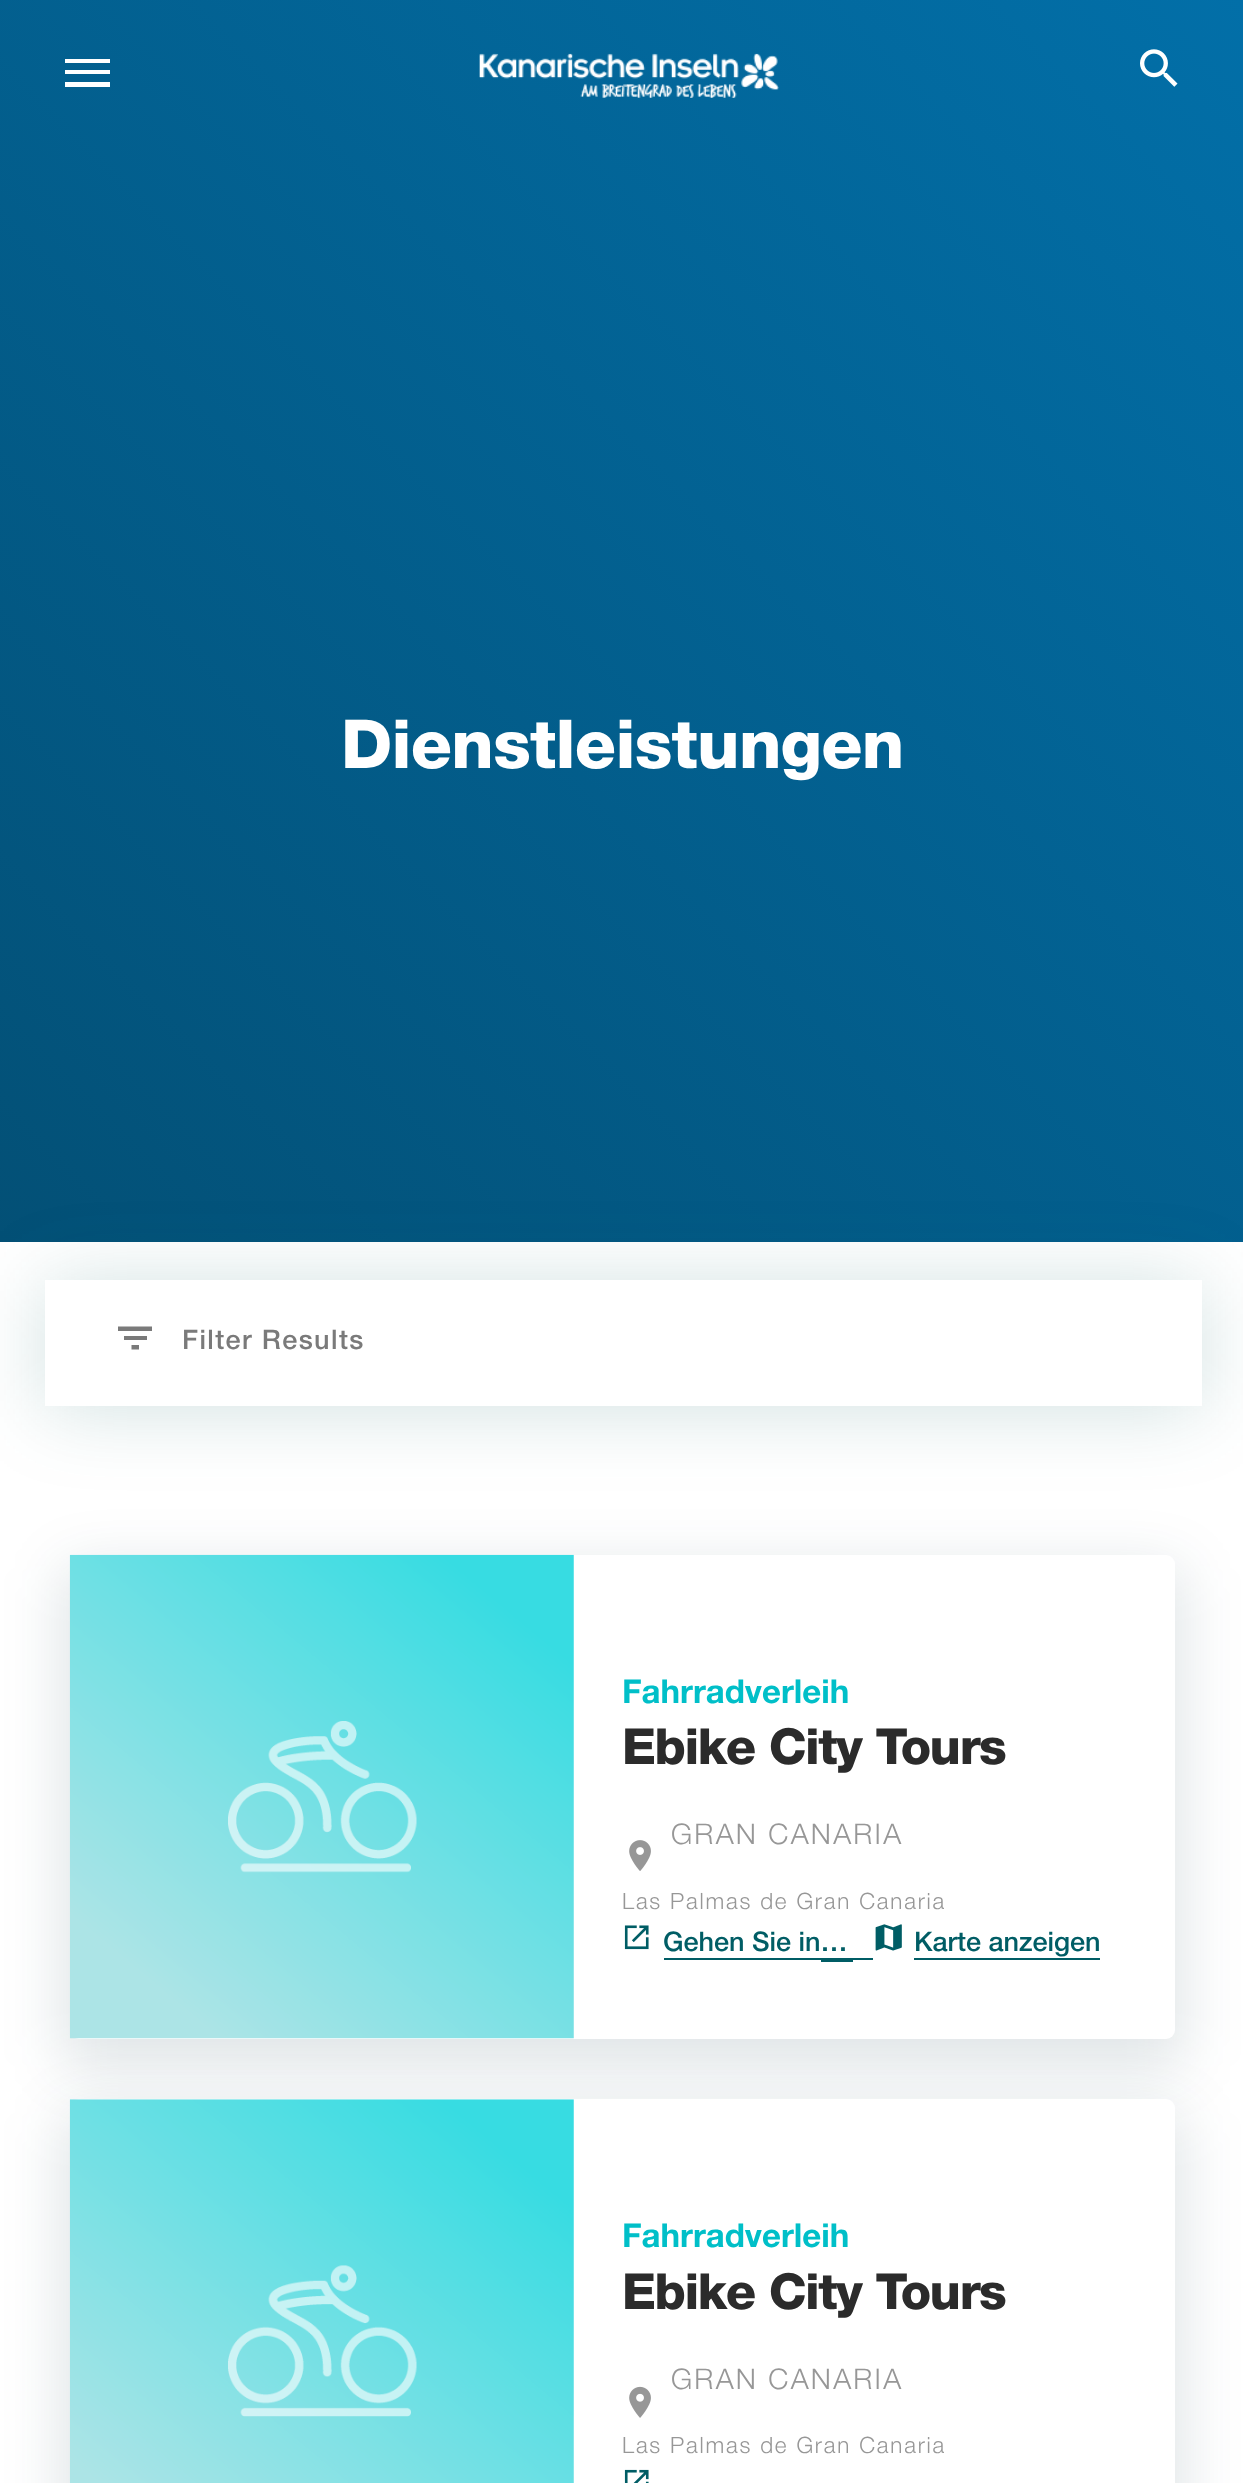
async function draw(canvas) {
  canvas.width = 1243
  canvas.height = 2483
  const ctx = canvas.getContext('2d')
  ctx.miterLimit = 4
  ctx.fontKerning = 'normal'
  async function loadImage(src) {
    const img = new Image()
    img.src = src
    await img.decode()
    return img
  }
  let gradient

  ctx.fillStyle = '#fff'
  ctx.fillRect(0, 0, 1243, 2483)
  gradient = ctx.createLinearGradient(1.1, 1243, 1243, -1.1)
  gradient.addColorStop(0, '#035076')
  gradient.addColorStop(1, '#026fa8')
  ctx.fillStyle = gradient
  ctx.fillRect(0, 0, 1243, 1242)
  ctx.fillStyle = '#fff'
  ctx.beginPath()
  ctx.moveTo(65, 59)
  ctx.lineTo(110, 59)
  ctx.lineTo(110, 63)
  ctx.lineTo(65, 63)
  ctx.closePath()
  ctx.moveTo(65, 82)
  ctx.lineTo(110, 82)
  ctx.lineTo(110, 87)
  ctx.lineTo(65, 87)
  ctx.closePath()
  ctx.moveTo(65, 70)
  ctx.lineTo(110, 70)
  ctx.lineTo(110, 74)
  ctx.lineTo(65, 74)
  ctx.closePath()
  ctx.fill()
  ctx.drawImage(await loadImage('image0.png'), 479, 53, 300, 45)
  ctx.drawImage(await loadImage('image1.png'), 1140, 49, 38, 38)
  ctx.letterSpacing = '-0.7px'
  ctx.font = 'bold 67.5px "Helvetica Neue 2"'
  ctx.fillText('Dienstleistungen', 341, 768)
  ctx.fillStyle = '#0056572e'
  ctx.filter = 'blur(39.5px)'
  ctx.beginPath()
  ctx.rect(45, 1283, 1157, 126)
  ctx.fill()
  ctx.filter = 'none'
  ctx.fillStyle = '#fff'
  ctx.fillRect(45, 1280, 1157, 126)
  ctx.fillStyle = '#7a7a7a'
  ctx.beginPath()
  ctx.moveTo(118, 1326.5)
  ctx.lineTo(152, 1326.5)
  ctx.lineTo(152, 1331)
  ctx.lineTo(118, 1331)
  ctx.closePath()
  ctx.moveTo(131.5, 1345)
  ctx.lineTo(139, 1345)
  ctx.lineTo(139, 1349.5)
  ctx.lineTo(131.5, 1349.5)
  ctx.closePath()
  ctx.moveTo(124, 1336)
  ctx.lineTo(147, 1336)
  ctx.lineTo(147, 1340)
  ctx.lineTo(124, 1340)
  ctx.closePath()
  ctx.fill()
  ctx.letterSpacing = '1.4px'
  ctx.font = '500 27px Helvetica Neue'
  ctx.fillText('Filter Results', 182, 1349)
  ctx.fillStyle = '#00283a1f'
  ctx.filter = 'blur(29.5px)'
  ctx.beginPath()
  ctx.roundRect(61, 1566, 1123, 502, 18)
  ctx.fill()
  ctx.filter = 'none'
  ctx.fillStyle = '#fff'
  ctx.beginPath()
  ctx.roundRect(70, 1555, 1105, 484, 9)
  ctx.fill()
  ctx.drawImage(await loadImage('image2.png'), 69, 1554, 505, 485)
  ctx.letterSpacing = '0px'
  ctx.font = 'bold 33px Helvetica Neue'
  ctx.fillStyle = '#00bfc8'
  ctx.fillText('Fahrradverleih', 622, 1703)
  ctx.letterSpacing = '-1.5px'
  ctx.font = 'bold 49.75px "Helvetica Neue 2"'
  ctx.fillStyle = '#2b2b2b'
  ctx.fillText('Ebike City Tours', 622, 1764)
  ctx.letterSpacing = '2.25px'
  ctx.font = '300 28.5px Helvetica Neue'
  ctx.fillStyle = '#979797'
  ctx.fillText('GRAN CANARIA', 671, 1844)
  ctx.drawImage(await loadImage('image3.png'), 629, 1840, 22, 31)
  ctx.letterSpacing = '1.8px'
  ctx.font = '300 22.5px Helvetica Neue'
  ctx.fillText('Las Palmas de Gran Canaria', 622, 1909)
  ctx.drawImage(await loadImage('image4.png'), 624, 1925, 25, 25)
  ctx.letterSpacing = '0px'
  ctx.font = '500 27px Helvetica Neue'
  ctx.fillStyle = '#005d65'
  ctx.fillText('Gehen Sie in…', 663, 1951)
  ctx.fillRect(664, 1958, 209, 2)
  ctx.fillRect(821, 1960, 32, 2)
  ctx.drawImage(await loadImage('image5.png'), 875, 1924, 27, 27)
  ctx.fillText('Karte anzeigen', 914, 1951)
  ctx.fillRect(914, 1958, 186, 2)
  ctx.fillStyle = '#00283a1f'
  ctx.filter = 'blur(29.5px)'
  ctx.beginPath()
  ctx.roundRect(61, 2111, 1123, 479, 18)
  ctx.fill()
  ctx.filter = 'none'
  ctx.fillStyle = '#fff'
  ctx.beginPath()
  ctx.roundRect(70, 2099, 1105, 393, 9)
  ctx.fill()
  ctx.drawImage(await loadImage('image6.png'), 69, 2099, 505, 384)
  ctx.font = 'bold 33px Helvetica Neue'
  ctx.fillStyle = '#00bfc8'
  ctx.fillText('Fahrradverleih', 622, 2247)
  ctx.letterSpacing = '-1.5px'
  ctx.font = 'bold 49.75px "Helvetica Neue 2"'
  ctx.fillStyle = '#2b2b2b'
  ctx.fillText('Ebike City Tours', 622, 2309)
  ctx.letterSpacing = '2.25px'
  ctx.font = '300 28.5px Helvetica Neue'
  ctx.fillStyle = '#979797'
  ctx.fillText('GRAN CANARIA', 671, 2389)
  ctx.drawImage(await loadImage('image7.png'), 629, 2386, 22, 32)
  ctx.letterSpacing = '1.8px'
  ctx.font = '300 22.5px Helvetica Neue'
  ctx.fillText('Las Palmas de Gran Canaria', 622, 2453)
  ctx.drawImage(await loadImage('image8.png'), 624, 2469, 25, 14)
}

draw(document.querySelector('canvas'))
